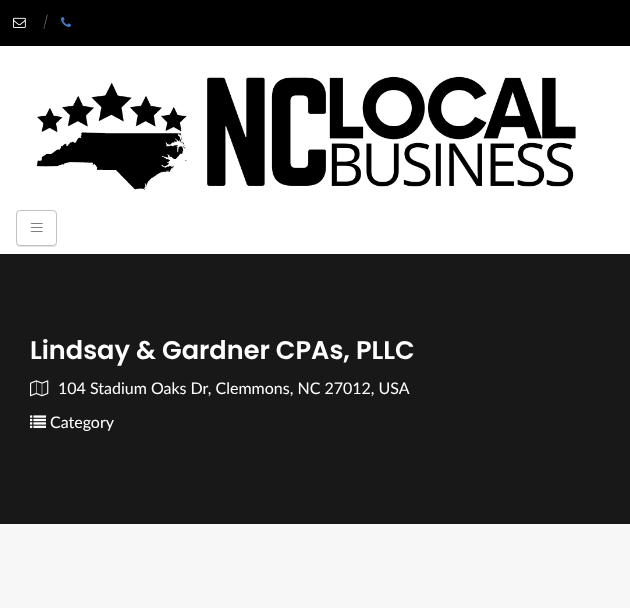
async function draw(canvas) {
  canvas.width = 630
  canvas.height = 608
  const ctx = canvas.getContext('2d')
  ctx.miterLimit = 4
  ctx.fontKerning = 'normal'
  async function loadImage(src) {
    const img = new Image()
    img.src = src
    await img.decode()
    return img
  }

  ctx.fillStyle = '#fff'
  ctx.fillRect(0, 0, 630, 608)
  ctx.fillStyle = '#000'
  ctx.fillRect(0, 0, 630, 46)
  ctx.drawImage(await loadImage('image0.png'), 13, 17, 13, 11)
  ctx.font = '200 13px Poppins'
  ctx.fillStyle = '#808080'
  ctx.fillText('/', 43, 27)
  ctx.drawImage(await loadImage('image1.png'), 61, 17, 10, 10)
  ctx.drawImage(await loadImage('image2.png'), 37, 76, 539, 114)
  ctx.save()
  ctx.beginPath()
  ctx.moveTo(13, 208)
  ctx.lineTo(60, 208)
  ctx.lineTo(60, 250)
  ctx.lineTo(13, 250)
  ctx.closePath()
  ctx.moveTo(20, 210)
  ctx.lineTo(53, 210)
  ctx.bezierCurveTo(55, 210, 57, 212, 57, 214)
  ctx.lineTo(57, 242)
  ctx.bezierCurveTo(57, 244, 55, 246, 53, 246)
  ctx.lineTo(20, 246)
  ctx.bezierCurveTo(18, 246, 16, 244, 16, 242)
  ctx.lineTo(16, 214)
  ctx.bezierCurveTo(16, 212, 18, 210, 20, 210)
  ctx.closePath()
  ctx.clip('evenodd')
  ctx.fillStyle = '#0000001a'
  ctx.filter = 'blur(0.5px)'
  ctx.beginPath()
  ctx.roundRect(16, 211, 41, 36, 4)
  ctx.fill()
  ctx.filter = 'none'
  ctx.restore()
  ctx.beginPath()
  ctx.roundRect(16.5, 210.5, 40, 35, 3.5)
  ctx.strokeStyle = '#c1c1c1'
  ctx.stroke()
  ctx.drawImage(await loadImage('image3.png'), 30, 223, 13, 9)
  ctx.fillStyle = '#181818'
  ctx.fillRect(0, 254, 630, 270)
  ctx.font = '600 25.6px Poppins'
  ctx.fillStyle = '#fff'
  ctx.fillText('Lindsay & Gardner CPAs, PLLC', 30, 359)
  ctx.drawImage(await loadImage('image4.png'), 30, 380, 19, 17)
  ctx.font = '16px Lato'
  ctx.fillText('104 Stadium Oaks Dr, Clemmons, NC 27012, USA', 58, 394)
  ctx.drawImage(await loadImage('image5.png'), 30, 415, 16, 13)
  ctx.fillText('Category', 50, 428)
  ctx.fillStyle = '#f7f7f7'
  ctx.fillRect(0, 524, 630, 84)
}

draw(document.querySelector('canvas'))
